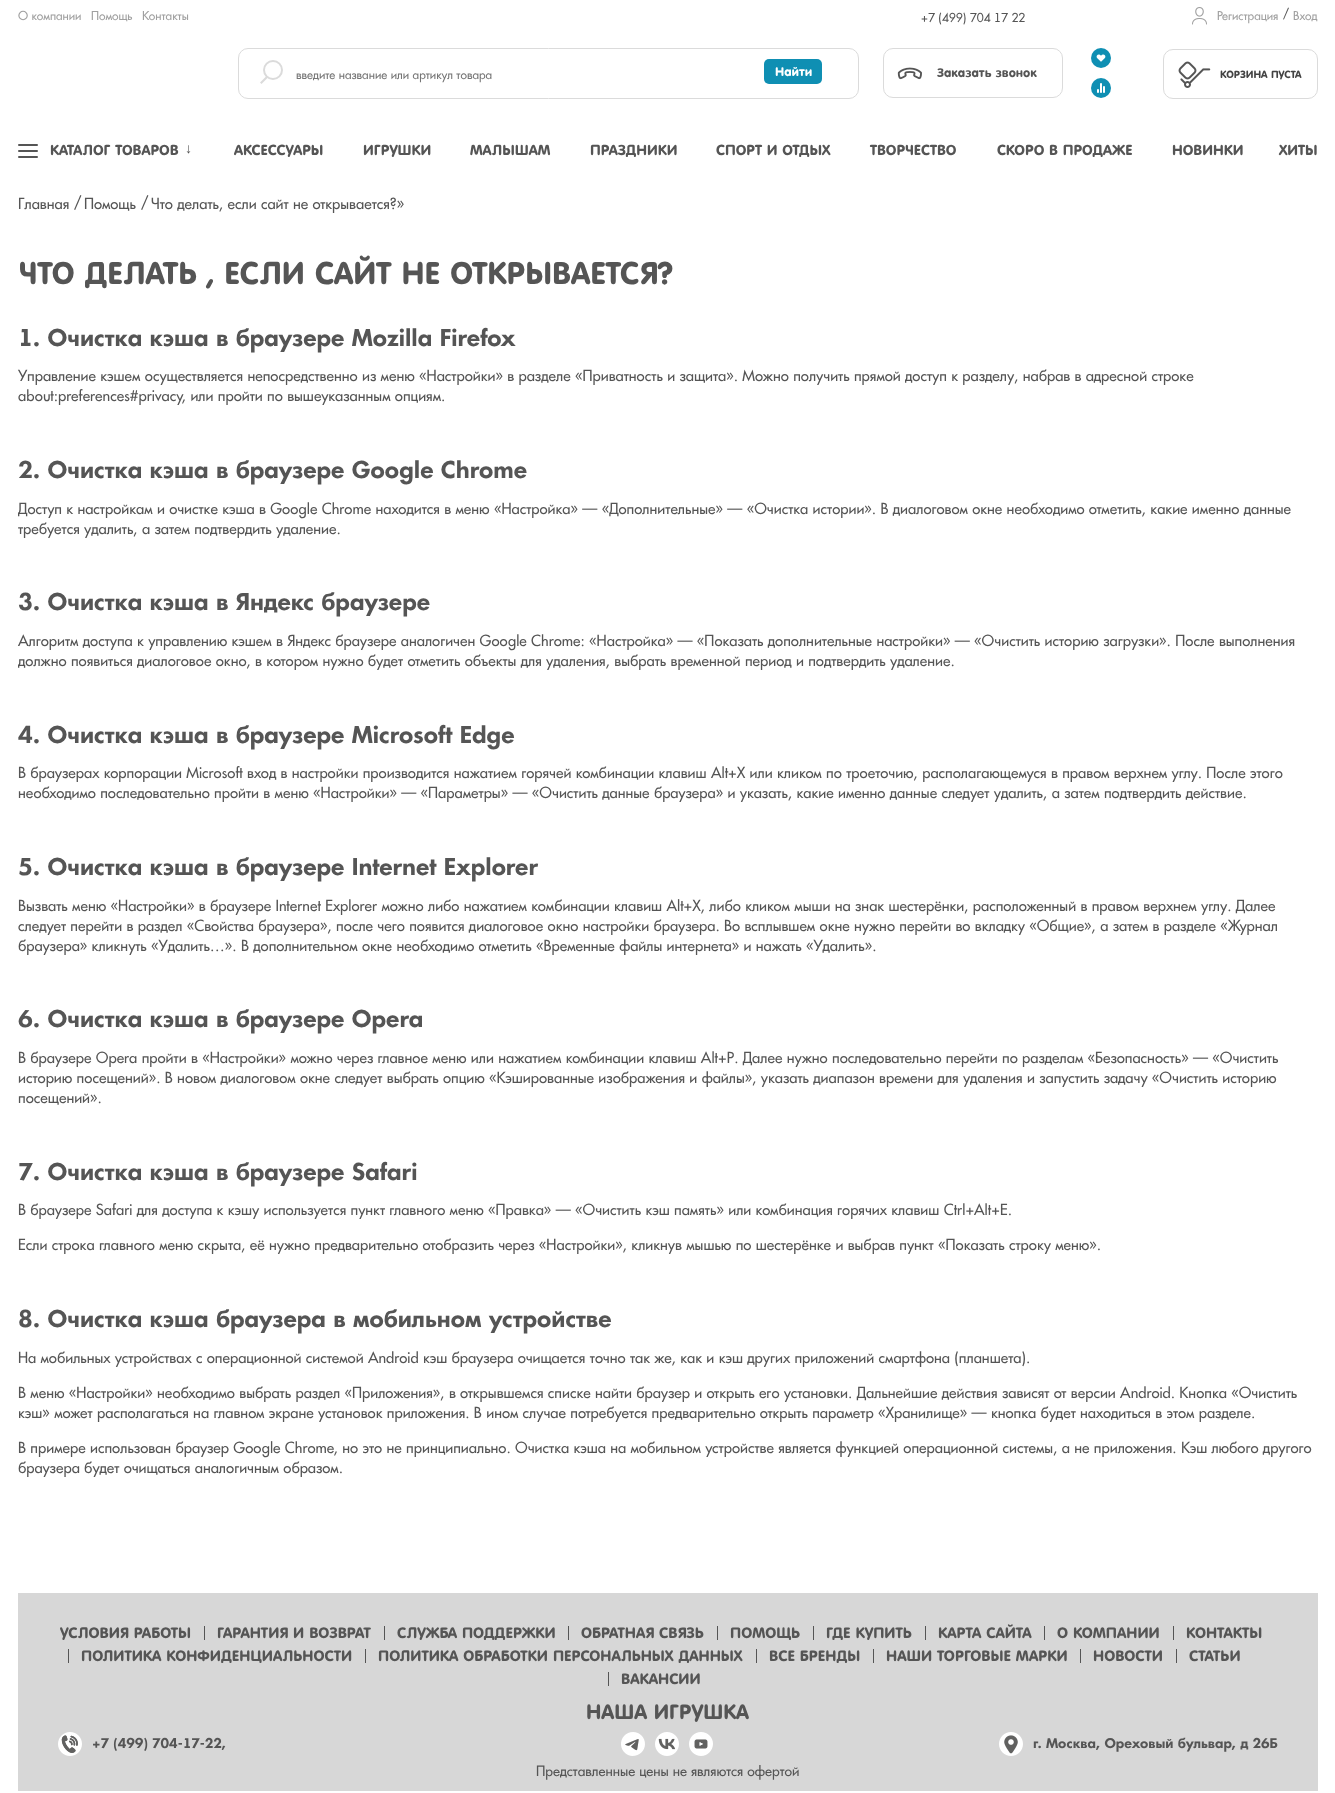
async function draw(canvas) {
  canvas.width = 1335
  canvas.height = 1793
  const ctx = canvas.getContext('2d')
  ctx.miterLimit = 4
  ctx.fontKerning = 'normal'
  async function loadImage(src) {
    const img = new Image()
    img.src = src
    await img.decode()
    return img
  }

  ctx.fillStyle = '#fff'
  ctx.fillRect(0, 0, 1335, 1793)
  ctx.font = '12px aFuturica'
  ctx.fillStyle = '#a0a0a0'
  ctx.fillText('О компании', 18, 20)
  ctx.fillText('Помощь', 91, 20)
  ctx.fillText('Контакты', 142, 20)
  ctx.fillStyle = '#555'
  ctx.fillText('+7 (499) 704 17 22', 921, 22)
  ctx.drawImage(await loadImage('image0.png'), 1192, 7, 15, 18)
  ctx.fillStyle = '#a0a0a0'
  ctx.fillText('Регистрация', 1217, 20)
  ctx.fillStyle = '#555'
  ctx.fillText('/', 1283, 18)
  ctx.fillStyle = '#a0a0a0'
  ctx.fillText('Вход', 1293, 20)
  ctx.beginPath()
  ctx.roundRect(238.5, 48.5, 620, 50, 9.5)
  ctx.strokeStyle = '#dbdbdb'
  ctx.stroke()
  ctx.beginPath()
  ctx.arc(273, 70, 9, 0, 2 * Math.PI)
  ctx.lineWidth = 2
  ctx.stroke()
  ctx.fillStyle = '#dbdbdb'
  ctx.beginPath()
  ctx.moveTo(260, 82.5)
  ctx.lineTo(266.5, 76)
  ctx.lineTo(268, 77.5)
  ctx.lineTo(261.5, 84)
  ctx.closePath()
  ctx.fill()
  ctx.fillStyle = '#0f8fb3'
  ctx.beginPath()
  ctx.roundRect(764, 59, 58, 25, 5)
  ctx.fill()
  ctx.font = 'bold 12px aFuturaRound'
  ctx.fillStyle = '#fff'
  ctx.fillText('Найти', 775, 76)
  ctx.font = '12px aFuturica'
  ctx.fillStyle = '#757575'
  ctx.fillText('введите название или артикул товара', 296, 79)
  ctx.beginPath()
  ctx.roundRect(883.5, 48.5, 179, 49, 9.5)
  ctx.lineWidth = 1
  ctx.stroke()
  ctx.drawImage(await loadImage('image1.png'), 897, 67, 25, 13)
  ctx.font = 'bold 12px aFuturaRound'
  ctx.fillStyle = '#555'
  ctx.fillText('Заказать звонок', 937, 77)
  ctx.fillStyle = '#0f8fb3'
  ctx.beginPath()
  ctx.arc(1101, 58, 10, 0, 2 * Math.PI)
  ctx.fill()
  ctx.drawImage(await loadImage('image2.png'), 1096, 54, 10, 8)
  ctx.beginPath()
  ctx.arc(1101, 88, 10, 0, 2 * Math.PI)
  ctx.fill()
  ctx.drawImage(await loadImage('image3.png'), 1097, 83, 8, 10)
  ctx.beginPath()
  ctx.roundRect(1163.5, 49.5, 154, 49, 9.5)
  ctx.stroke()
  ctx.drawImage(await loadImage('image4.png'), 1178, 61, 33, 27)
  ctx.font = 'bold 10px aFuturaRound'
  ctx.fillStyle = '#434343'
  ctx.fillText('КОРЗИНА ПУСТА', 1220, 78)
  ctx.fillStyle = '#555'
  ctx.beginPath()
  ctx.roundRect(18, 144, 20, 2, 1)
  ctx.fill()
  ctx.beginPath()
  ctx.roundRect(18, 150, 20, 2, 1)
  ctx.fill()
  ctx.beginPath()
  ctx.roundRect(18, 156, 20, 2, 1)
  ctx.fill()
  ctx.font = 'bold 14px aFuturaRound'
  ctx.fillText('КАТАЛОГ ТОВАРОВ', 50, 155)
  ctx.font = 'bold 14px Liberation Sans'
  ctx.fillText('↓', 185, 153)
  ctx.font = 'bold 14px aFuturaRound'
  ctx.fillText('АКСЕССУАРЫ', 234, 155)
  ctx.fillText('ИГРУШКИ', 363, 155)
  ctx.fillText('МАЛЫШАМ', 470, 155)
  ctx.fillText('ПРАЗДНИКИ', 590, 155)
  ctx.fillText('СПОРТ И ОТДЫХ', 716, 155)
  ctx.fillText('ТВОРЧЕСТВО', 870, 155)
  ctx.fillText('СКОРО В ПРОДАЖЕ', 997, 155)
  ctx.fillText('НОВИНКИ', 1172, 155)
  ctx.fillText('ХИТЫ', 1279, 155)
  ctx.font = '15px aFuturica'
  ctx.fillText('Главная', 18, 209)
  ctx.fillText('/', 74, 208)
  ctx.fillText('Помощь', 84, 209)
  ctx.fillText('/', 141, 208)
  ctx.fillText('Что делать, если сайт не открывается?»', 151, 209)
  ctx.font = 'bold 30px aFuturaRound'
  ctx.fillText('ЧТО ДЕЛАТЬ , ЕСЛИ САЙТ НЕ ОТКРЫВАЕТСЯ?', 19, 284)
  ctx.font = 'bold 22.5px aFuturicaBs'
  ctx.fillText('1. Очистка кэша в браузере Mozilla Firefox', 18, 346)
  ctx.font = '15px aFuturica'
  ctx.fillText('Управление кэшем осуществляется непосредственно из меню «Настройки» в разделе «Приватность и защита». Можно получить прямой доступ к разделу, набрав в адресной строке', 18, 381)
  ctx.fillText('about:preferences#privacy, или пройти по вышеуказанным опциям.', 18, 401)
  ctx.font = 'bold 22.5px aFuturicaBs'
  ctx.fillText('2. Очистка кэша в браузере Google Chrome', 18, 478)
  ctx.font = '15px aFuturica'
  ctx.fillText('Доступ к настройкам и очистке кэша в Google Chrome находится в меню «Настройка» — «Дополнительные» — «Очистка истории». В диалоговом окне необходимо отметить, какие именно данные', 18, 514)
  ctx.fillText('требуется удалить, а затем подтвердить удаление.', 18, 534)
  ctx.font = 'bold 22.5px aFuturicaBs'
  ctx.fillText('3. Очистка кэша в Яндекс браузере', 18, 610)
  ctx.font = '15px aFuturica'
  ctx.fillText('Алгоритм доступа к управлению кэшем в Яндекс браузере аналогичен Google Chrome: «Настройка» — «Показать дополнительные настройки» — «Очистить историю загрузки». После выполнения', 18, 646)
  ctx.fillText('должно появиться диалоговое окно, в котором нужно будет отметить объекты для удаления, выбрать временной период и подтвердить удаление.', 18, 666)
  ctx.font = 'bold 22.5px aFuturicaBs'
  ctx.fillText('4. Очистка кэша в браузере Microsoft Edge', 18, 743)
  ctx.font = '15px aFuturica'
  ctx.fillText('В браузерах корпорации Microsoft вход в настройки производится нажатием горячей комбинации клавиш Alt+X или кликом по троеточию, располагающемуся в правом верхнем углу. После этого', 18, 778)
  ctx.fillText('необходимо последовательно пройти в меню «Настройки» — «Параметры» — «Очистить данные браузера» и указать, какие именно данные следует удалить, а затем подтвердить действие.', 18, 798)
  ctx.font = 'bold 22.5px aFuturicaBs'
  ctx.fillText('5. Очистка кэша в браузере Internet Explorer', 18, 875)
  ctx.font = '15px aFuturica'
  ctx.fillText('Вызвать меню «Настройки» в браузере Internet Explorer можно либо нажатием комбинации клавиш Alt+X, либо кликом мыши на знак шестерёнки, расположенный в правом верхнем углу. Далее', 18, 911)
  ctx.fillText('следует перейти в раздел «Свойства браузера», после чего появится диалоговое окно настройки браузера. Во всплывшем окне нужно перейти во вкладку «Общие», а затем в разделе «Журнал', 18, 931)
  ctx.fillText('браузера» кликнуть «Удалить…». В дополнительном окне необходимо отметить «Временные файлы интернета» и нажать «Удалить».', 18, 951)
  ctx.font = 'bold 22.5px aFuturicaBs'
  ctx.fillText('6. Очистка кэша в браузере Opera', 18, 1027)
  ctx.font = '15px aFuturica'
  ctx.fillText('В браузере Opera пройти в «Настройки» можно через главное меню или нажатием комбинации клавиш Alt+P. Далее нужно последовательно перейти по разделам «Безопасность» — «Очистить', 18, 1063)
  ctx.fillText('историю посещений». В новом диалоговом окне следует выбрать опцию «Кэшированные изображения и файлы», указать диапазон времени для удаления и запустить задачу «Очистить историю', 18, 1083)
  ctx.fillText('посещений».', 18, 1103)
  ctx.font = 'bold 22.5px aFuturicaBs'
  ctx.fillText('7. Очистка кэша в браузере Safari', 18, 1180)
  ctx.font = '15px aFuturica'
  ctx.fillText('В браузере Safari для доступа к кэшу используется пункт главного меню «Правка» — «Очистить кэш память» или комбинация горячих клавиш Ctrl+Alt+E.', 18, 1215)
  ctx.fillText('Если строка главного меню скрыта, её нужно предварительно отобразить через «Настройки», кликнув мышью по шестерёнке и выбрав пункт «Показать строку меню».', 18, 1250)
  ctx.font = 'bold 22.5px aFuturicaBs'
  ctx.fillText('8. Очистка кэша браузера в мобильном устройстве', 18, 1327)
  ctx.font = '15px aFuturica'
  ctx.fillText('На мобильных устройствах с операционной системой Android кэш браузера очищается точно так же, как и кэш других приложений смартфона (планшета).', 18, 1363)
  ctx.fillText('В меню «Настройки» необходимо выбрать раздел «Приложения», в открывшемся списке найти браузер и открыть его установки. Дальнейшие действия зависят от версии Android. Кнопка «Очистить', 18, 1398)
  ctx.fillText('кэш» может располагаться на главном экране установок приложения. В ином случае потребуется предварительно открыть параметр «Хранилище» — кнопка будет находиться в этом разделе.', 18, 1418)
  ctx.fillText('В примере использован браузер Google Chrome, но это не принципиально. Очистка кэша на мобильном устройстве является функцией операционной системы, а не приложения. Кэш любого другого', 18, 1453)
  ctx.fillText('браузера будет очищаться аналогичным образом.', 18, 1473)
  ctx.fillStyle = '#d7d7d7'
  ctx.fillRect(18, 1593, 1300, 198)
  ctx.font = 'bold 14.5px aFuturaRound'
  ctx.fillStyle = '#555'
  ctx.fillText('УСЛОВИЯ РАБОТЫ', 60, 1638)
  ctx.fillRect(204, 1626, 1, 14)
  ctx.fillText('ГАРАНТИЯ И ВОЗВРАТ', 217, 1638)
  ctx.fillRect(384, 1626, 1, 14)
  ctx.fillText('СЛУЖБА ПОДДЕРЖКИ', 397, 1638)
  ctx.fillRect(568, 1626, 1, 14)
  ctx.fillText('ОБРАТНАЯ СВЯЗЬ', 581, 1638)
  ctx.fillRect(717, 1626, 1, 14)
  ctx.fillText('ПОМОЩЬ', 730, 1638)
  ctx.fillRect(813, 1626, 1, 14)
  ctx.fillText('ГДЕ КУПИТЬ', 826, 1638)
  ctx.fillRect(925, 1626, 1, 14)
  ctx.fillText('КАРТА САЙТА', 938, 1638)
  ctx.fillRect(1044, 1626, 1, 14)
  ctx.fillText('О КОМПАНИИ', 1057, 1638)
  ctx.fillRect(1173, 1626, 1, 14)
  ctx.fillText('КОНТАКТЫ', 1186, 1638)
  ctx.fillRect(68, 1649, 1, 14)
  ctx.fillText('ПОЛИТИКА КОНФИДЕНЦИАЛЬНОСТИ', 81, 1661)
  ctx.fillRect(365, 1649, 1, 14)
  ctx.fillText('ПОЛИТИКА ОБРАБОТКИ ПЕРСОНАЛЬНЫХ ДАННЫХ', 378, 1661)
  ctx.fillRect(756, 1649, 1, 14)
  ctx.fillText('ВСЕ БРЕНДЫ', 769, 1661)
  ctx.fillRect(873, 1649, 1, 14)
  ctx.fillText('НАШИ ТОРГОВЫЕ МАРКИ', 886, 1661)
  ctx.fillRect(1080, 1649, 1, 14)
  ctx.fillText('НОВОСТИ', 1093, 1661)
  ctx.fillRect(1176, 1649, 1, 14)
  ctx.fillText('СТАТЬИ', 1189, 1661)
  ctx.fillRect(608, 1672, 1, 14)
  ctx.fillText('ВАКАНСИИ', 621, 1684)
  ctx.font = 'bold 20px aFuturaRound'
  ctx.fillText('НАША ИГРУШКА', 586, 1719)
  ctx.drawImage(await loadImage('image5.png'), 58, 1732, 24, 24)
  ctx.font = 'bold 13px aFuturicaBs'
  ctx.fillText('+7 (499) 704-17-22,', 92, 1748)
  ctx.drawImage(await loadImage('image6.png'), 621, 1732, 24, 24)
  ctx.drawImage(await loadImage('image7.png'), 655, 1732, 24, 24)
  ctx.drawImage(await loadImage('image8.png'), 689, 1732, 24, 24)
  ctx.drawImage(await loadImage('image9.png'), 999, 1732, 24, 24)
  ctx.fillText('г. Москва, Ореховый бульвар, д 26Б', 1033, 1748)
  ctx.font = '14px aFuturica'
  ctx.fillText('Представленные цены не являются офертой', 536, 1776)
}

draw(document.querySelector('canvas'))
